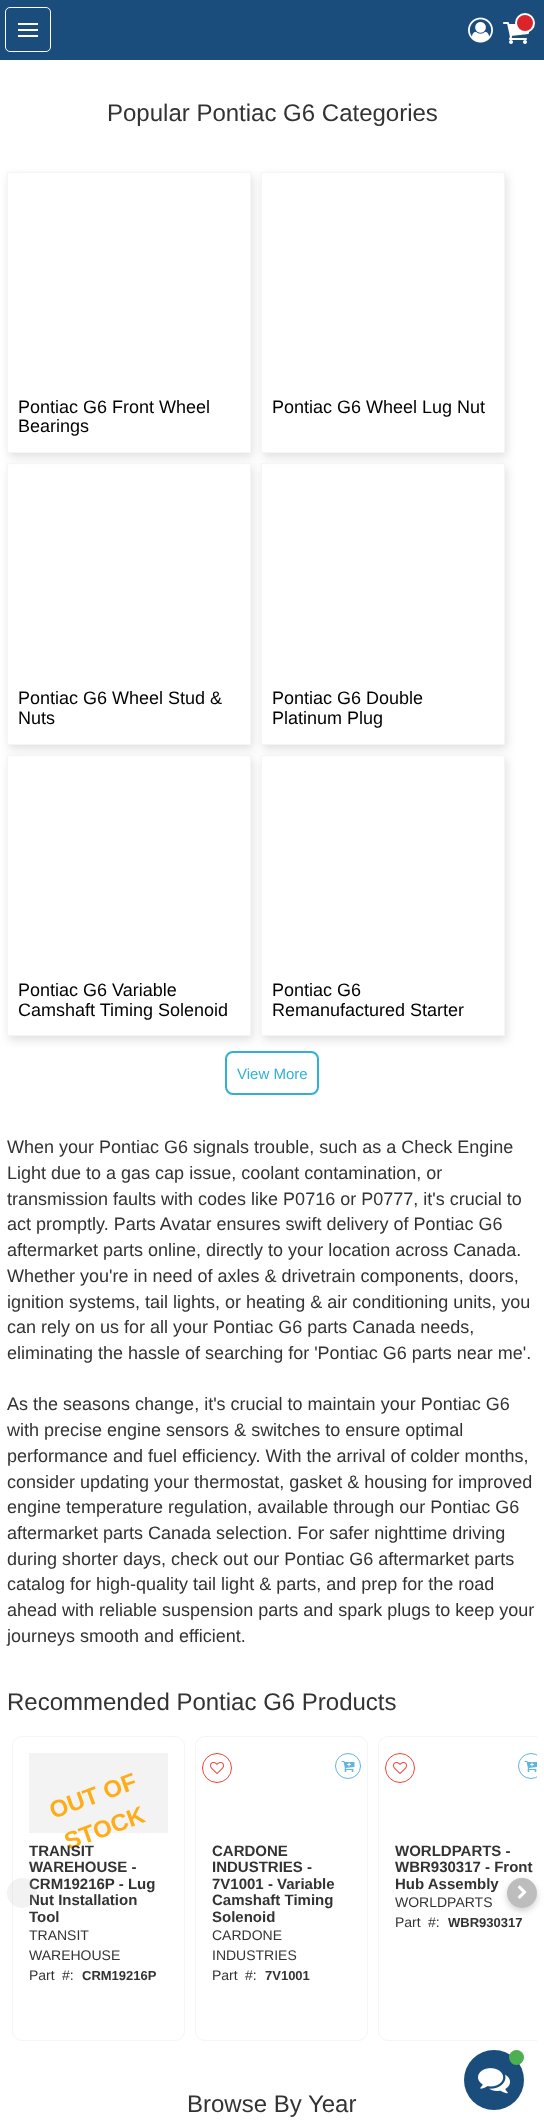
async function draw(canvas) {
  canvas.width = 544
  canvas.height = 2120
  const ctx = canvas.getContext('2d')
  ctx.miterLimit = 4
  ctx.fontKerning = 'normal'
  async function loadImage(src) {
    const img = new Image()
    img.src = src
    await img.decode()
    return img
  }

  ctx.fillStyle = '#fff'
  ctx.fillRect(0, 0, 544, 2120)
  ctx.fillStyle = '#1a4d7c'
  ctx.fillRect(0, 0, 544, 60)
  ctx.beginPath()
  ctx.roundRect(5.5, 7.5, 45, 44, 4.5)
  ctx.strokeStyle = '#fff'
  ctx.stroke()
  ctx.drawImage(await loadImage('image0.png'), 18, 23, 20, 14)
  ctx.drawImage(await loadImage('image1.png'), 468, 17, 25, 26)
  ctx.drawImage(await loadImage('image2.png'), 503, 22, 26, 22)
  ctx.fillStyle = '#db2429'
  ctx.beginPath()
  ctx.arc(525, 23, 9, 0, 2 * Math.PI)
  ctx.fill()
  ctx.lineWidth = 2
  ctx.stroke()
  ctx.font = '24px Liberation Sans'
  ctx.fillStyle = '#333'
  ctx.fillText('Popular Pontiac G6 Categories', 107, 121)
  ctx.save()
  ctx.beginPath()
  ctx.moveTo(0, 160)
  ctx.lineTo(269, 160)
  ctx.lineTo(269, 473)
  ctx.lineTo(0, 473)
  ctx.closePath()
  ctx.moveTo(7, 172)
  ctx.lineTo(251, 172)
  ctx.lineTo(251, 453)
  ctx.lineTo(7, 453)
  ctx.closePath()
  ctx.clip('evenodd')
  ctx.fillStyle = '#e0e0e0'
  ctx.filter = 'blur(5px)'
  ctx.beginPath()
  ctx.rect(9, 176, 244, 281)
  ctx.fill()
  ctx.filter = 'none'
  ctx.restore()
  ctx.strokeStyle = '#f5f5f5'
  ctx.lineWidth = 1
  ctx.strokeRect(7.5, 172.5, 243, 280)
  ctx.font = '18px Liberation Sans'
  ctx.fillStyle = '#000'
  ctx.fillText('Pontiac G6 Front Wheel', 18, 413)
  ctx.fillText('Bearings', 18, 432)
  ctx.save()
  ctx.beginPath()
  ctx.moveTo(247, 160)
  ctx.lineTo(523, 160)
  ctx.lineTo(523, 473)
  ctx.lineTo(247, 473)
  ctx.closePath()
  ctx.moveTo(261, 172)
  ctx.lineTo(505, 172)
  ctx.lineTo(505, 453)
  ctx.lineTo(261, 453)
  ctx.closePath()
  ctx.clip('evenodd')
  ctx.fillStyle = '#e0e0e0'
  ctx.filter = 'blur(5px)'
  ctx.beginPath()
  ctx.rect(263, 176, 244, 281)
  ctx.fill()
  ctx.filter = 'none'
  ctx.restore()
  ctx.strokeRect(261.5, 172.5, 243, 280)
  ctx.fillText('Pontiac G6 Wheel Lug Nut', 272, 413)
  ctx.save()
  ctx.beginPath()
  ctx.moveTo(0, 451)
  ctx.lineTo(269, 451)
  ctx.lineTo(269, 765)
  ctx.lineTo(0, 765)
  ctx.closePath()
  ctx.moveTo(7, 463)
  ctx.lineTo(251, 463)
  ctx.lineTo(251, 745)
  ctx.lineTo(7, 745)
  ctx.closePath()
  ctx.clip('evenodd')
  ctx.fillStyle = '#e0e0e0'
  ctx.filter = 'blur(5px)'
  ctx.beginPath()
  ctx.rect(9, 467, 244, 282)
  ctx.fill()
  ctx.filter = 'none'
  ctx.restore()
  ctx.strokeRect(7.5, 463.5, 243, 281)
  ctx.fillText('Pontiac G6 Wheel Stud &', 18, 704)
  ctx.fillText('Nuts', 18, 724)
  ctx.save()
  ctx.beginPath()
  ctx.moveTo(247, 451)
  ctx.lineTo(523, 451)
  ctx.lineTo(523, 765)
  ctx.lineTo(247, 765)
  ctx.closePath()
  ctx.moveTo(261, 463)
  ctx.lineTo(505, 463)
  ctx.lineTo(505, 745)
  ctx.lineTo(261, 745)
  ctx.closePath()
  ctx.clip('evenodd')
  ctx.fillStyle = '#e0e0e0'
  ctx.filter = 'blur(5px)'
  ctx.beginPath()
  ctx.rect(263, 467, 244, 282)
  ctx.fill()
  ctx.filter = 'none'
  ctx.restore()
  ctx.strokeRect(261.5, 463.5, 243, 281)
  ctx.fillText('Pontiac G6 Double', 272, 704)
  ctx.fillText('Platinum Plug', 272, 724)
  ctx.beginPath()
  ctx.roundRect(226, 1052, 92, 42, 7)
  ctx.strokeStyle = '#31b0d5'
  ctx.lineWidth = 2
  ctx.stroke()
  ctx.save()
  ctx.beginPath()
  ctx.moveTo(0, 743)
  ctx.lineTo(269, 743)
  ctx.lineTo(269, 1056)
  ctx.lineTo(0, 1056)
  ctx.closePath()
  ctx.moveTo(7, 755)
  ctx.lineTo(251, 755)
  ctx.lineTo(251, 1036)
  ctx.lineTo(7, 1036)
  ctx.closePath()
  ctx.clip('evenodd')
  ctx.fillStyle = '#e0e0e0'
  ctx.filter = 'blur(5px)'
  ctx.beginPath()
  ctx.rect(9, 759, 244, 281)
  ctx.fill()
  ctx.filter = 'none'
  ctx.restore()
  ctx.strokeStyle = '#f5f5f5'
  ctx.lineWidth = 1
  ctx.strokeRect(7.5, 755.5, 243, 280)
  ctx.fillText('Pontiac G6 Variable', 18, 996)
  ctx.fillText('Camshaft Timing Solenoid', 18, 1016)
  ctx.save()
  ctx.beginPath()
  ctx.moveTo(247, 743)
  ctx.lineTo(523, 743)
  ctx.lineTo(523, 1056)
  ctx.lineTo(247, 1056)
  ctx.closePath()
  ctx.moveTo(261, 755)
  ctx.lineTo(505, 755)
  ctx.lineTo(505, 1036)
  ctx.lineTo(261, 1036)
  ctx.closePath()
  ctx.clip('evenodd')
  ctx.fillStyle = '#e0e0e0'
  ctx.filter = 'blur(5px)'
  ctx.beginPath()
  ctx.rect(263, 759, 244, 281)
  ctx.fill()
  ctx.filter = 'none'
  ctx.restore()
  ctx.strokeRect(261.5, 755.5, 243, 280)
  ctx.fillText('Pontiac G6', 272, 996)
  ctx.fillText('Remanufactured Starter', 272, 1016)
  ctx.font = '15px Liberation Sans'
  ctx.fillStyle = '#31b0d5'
  ctx.fillText('View More', 237, 1079)
  ctx.font = '18px Liberation Sans'
  ctx.fillStyle = '#333'
  ctx.fillText('When your Pontiac G6 signals trouble, such as a Check Engine', 7, 1153)
  ctx.fillText('Light due to a gas cap issue, coolant contamination, or', 7, 1179)
  ctx.fillText('transmission faults with codes like P0716 or P0777, it\'s crucial to', 7, 1205)
  ctx.fillText('act promptly. Parts Avatar ensures swift delivery of Pontiac G6', 7, 1230)
  ctx.fillText('aftermarket parts online, directly to your location across Canada.', 7, 1256)
  ctx.fillText('Whether you\'re in need of axles & drivetrain components, doors,', 7, 1282)
  ctx.fillText('ignition systems, tail lights, or heating & air conditioning units, you', 7, 1308)
  ctx.fillText('can rely on us for all your Pontiac G6 parts Canada needs,', 7, 1333)
  ctx.fillText('eliminating the hassle of searching for \'Pontiac G6 parts near me\'.', 7, 1359)
  ctx.fillText('As the seasons change, it\'s crucial to maintain your Pontiac G6', 7, 1410)
  ctx.fillText('with precise engine sensors & switches to ensure optimal', 7, 1436)
  ctx.fillText('performance and fuel efficiency. With the arrival of colder months,', 7, 1462)
  ctx.fillText('consider updating your thermostat, gasket & housing for improved', 7, 1488)
  ctx.fillText('engine temperature regulation, available through our Pontiac G6', 7, 1513)
  ctx.fillText('aftermarket parts Canada selection. For safer nighttime driving', 7, 1539)
  ctx.fillText('during shorter days, check out our Pontiac G6 aftermarket parts', 7, 1565)
  ctx.fillText('catalog for high-quality tail light & parts, and prep for the road', 7, 1590)
  ctx.fillText('ahead with reliable suspension parts and spark plugs to keep your', 7, 1616)
  ctx.fillText('journeys smooth and efficient.', 7, 1642)
  ctx.font = '24px Liberation Sans'
  ctx.fillText('Recommended Pontiac G6 Products', 7, 1710)
  ctx.beginPath()
  ctx.roundRect(12.5, 1736.5, 172, 304, 9.5)
  ctx.stroke()
  ctx.fillStyle = '#f3f3f3'
  ctx.fillRect(29, 1753, 139, 80)
  ctx.font = 'bold 24px Liberation Sans'
  ctx.fillStyle = '#fead18'
  ctx.save()
  ctx.translate(53, 1819)
  ctx.rotate(-20 * Math.PI / 180)
  ctx.fillText('OUT OF', 0, 0)
  ctx.restore()
  ctx.save()
  ctx.translate(68, 1850)
  ctx.rotate(-20 * Math.PI / 180)
  ctx.fillText('STOCK', 0, 0)
  ctx.restore()
  ctx.font = 'bold 15px Liberation Sans'
  ctx.fillStyle = '#333'
  ctx.fillText('TRANSIT', 29, 1856)
  ctx.fillText('WAREHOUSE -', 29, 1872)
  ctx.fillText('CRM19216P - Lug', 29, 1889)
  ctx.fillText('Nut Installation', 29, 1905)
  ctx.fillText('Tool', 29, 1922)
  ctx.font = '14px Liberation Sans'
  ctx.fillText('TRANSIT', 29, 1940)
  ctx.fillText('WAREHOUSE', 29, 1960)
  ctx.fillText('Part', 29, 1980)
  ctx.fillText('#:', 62, 1980)
  ctx.font = 'bold 13px Liberation Sans'
  ctx.fillText('CRM19216P', 82, 1980)
  ctx.beginPath()
  ctx.roundRect(195.5, 1736.5, 172, 304, 9.5)
  ctx.stroke()
  ctx.beginPath()
  ctx.arc(217, 1768, 14.5, 0, 2 * Math.PI)
  ctx.strokeStyle = '#f44336'
  ctx.stroke()
  ctx.drawImage(await loadImage('image3.png'), 210, 1762, 14, 12)
  ctx.beginPath()
  ctx.arc(348, 1766, 12.5, 0, 2 * Math.PI)
  ctx.strokeStyle = '#5eb5e2'
  ctx.stroke()
  ctx.drawImage(await loadImage('image4.png'), 341, 1761, 14, 11)
  ctx.font = 'bold 15px Liberation Sans'
  ctx.fillText('CARDONE', 212, 1856)
  ctx.fillText('INDUSTRIES -', 212, 1872)
  ctx.fillText('7V1001 - Variable', 212, 1889)
  ctx.fillText('Camshaft Timing', 212, 1905)
  ctx.fillText('Solenoid', 212, 1922)
  ctx.font = '14px Liberation Sans'
  ctx.fillText('CARDONE', 212, 1940)
  ctx.fillText('INDUSTRIES', 212, 1960)
  ctx.fillText('Part', 212, 1980)
  ctx.fillText('#:', 245, 1980)
  ctx.font = 'bold 13px Liberation Sans'
  ctx.fillText('7V1001', 265, 1980)
  ctx.save()
  ctx.beginPath()
  ctx.rect(7, 1736, 530, 315)
  ctx.clip()
  ctx.beginPath()
  ctx.roundRect(378.5, 1736.5, 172, 304, 9.5)
  ctx.strokeStyle = '#f5f5f5'
  ctx.stroke()
  ctx.restore()
  ctx.beginPath()
  ctx.arc(400, 1768, 14.5, 0, 2 * Math.PI)
  ctx.strokeStyle = '#f44336'
  ctx.stroke()
  ctx.drawImage(await loadImage('image3.png'), 393, 1762, 14, 12)
  ctx.save()
  ctx.beginPath()
  ctx.rect(7, 1736, 530, 315)
  ctx.clip()
  ctx.beginPath()
  ctx.arc(531, 1766, 12.5, 0, 2 * Math.PI)
  ctx.strokeStyle = '#5eb5e2'
  ctx.stroke()
  ctx.restore()
  ctx.drawImage(await loadImage('image5.png'), 524, 1761, 13, 11)
  ctx.font = 'bold 15px Liberation Sans'
  ctx.fillText('WORLDPARTS -', 395, 1856)
  ctx.fillText('WBR930317 - Front', 395, 1872)
  ctx.fillText('Hub Assembly', 395, 1889)
  ctx.font = '14px Liberation Sans'
  ctx.fillText('WORLDPARTS', 395, 1907)
  ctx.fillText('Part', 395, 1927)
  ctx.fillText('#:', 428, 1927)
  ctx.font = 'bold 13px Liberation Sans'
  ctx.fillText('WBR930317', 448, 1927)
  ctx.fillStyle = '#bdbdbd33'
  ctx.beginPath()
  ctx.arc(22, 1893, 15, 0, 2 * Math.PI)
  ctx.fill()
  ctx.fillStyle = '#22192433'
  ctx.filter = 'blur(3px)'
  ctx.beginPath()
  ctx.roundRect(507, 1881, 30, 30, 15)
  ctx.fill()
  ctx.filter = 'none'
  ctx.fillStyle = '#bdbdbd'
  ctx.beginPath()
  ctx.arc(522, 1893, 15, 0, 2 * Math.PI)
  ctx.fill()
  ctx.drawImage(await loadImage('image6.png'), 517, 1885, 10, 14)
  ctx.font = '24px Liberation Sans'
  ctx.fillStyle = '#333'
  ctx.fillText('Browse By Year', 187, 2112)
  ctx.fillStyle = '#1a4d7c'
  ctx.beginPath()
  ctx.arc(494, 2080, 30, 0, 2 * Math.PI)
  ctx.fill()
  ctx.fillStyle = '#4caf50'
  ctx.beginPath()
  ctx.arc(516.5, 2057.5, 7.5, 0, 2 * Math.PI)
  ctx.fill()
  ctx.drawImage(await loadImage('image7.png'), 478, 2068, 32, 26)
}

draw(document.querySelector('canvas'))
